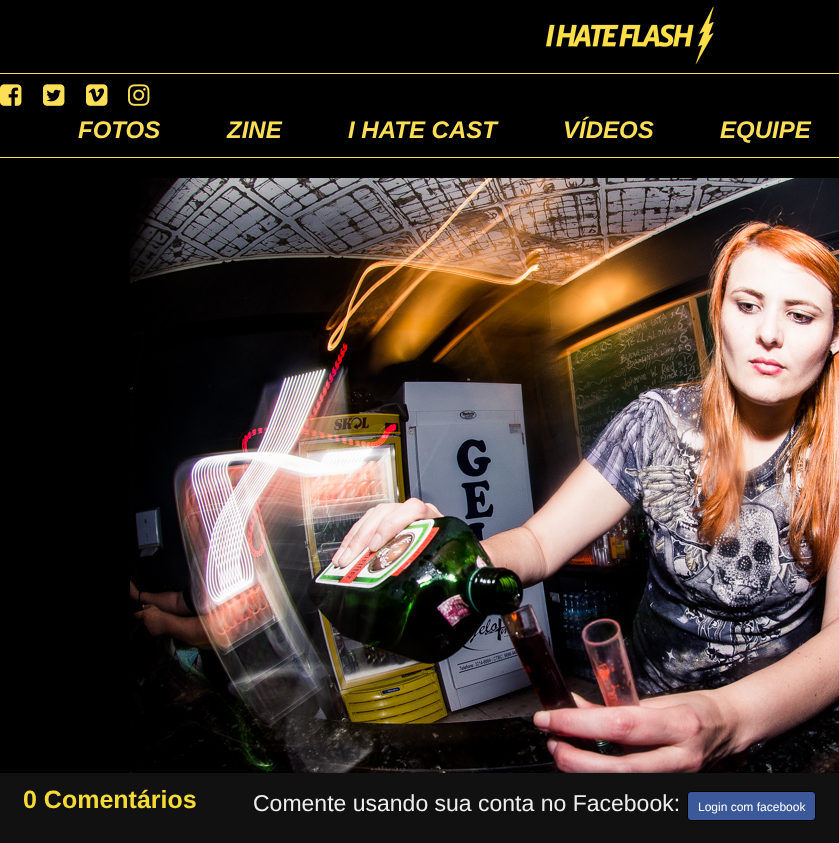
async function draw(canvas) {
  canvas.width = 839
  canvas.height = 843
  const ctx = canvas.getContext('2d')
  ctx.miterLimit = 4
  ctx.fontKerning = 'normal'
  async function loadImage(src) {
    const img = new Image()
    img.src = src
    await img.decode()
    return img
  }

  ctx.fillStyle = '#000'
  ctx.fillRect(0, 0, 839, 843)
  ctx.fillStyle = '#fcdf57'
  ctx.fillRect(0, 73, 839, 1)
  ctx.drawImage(await loadImage('image0.png'), 546, 7, 168, 58)
  ctx.fillRect(0, 157, 839, 1)
  ctx.drawImage(await loadImage('image1.png'), 0, 84, 22, 22)
  ctx.drawImage(await loadImage('image2.png'), 43, 84, 22, 22)
  ctx.drawImage(await loadImage('image3.png'), 86, 84, 22, 22)
  ctx.drawImage(await loadImage('image4.png'), 128, 84, 22, 22)
  ctx.font = 'italic bold 24px Liberation Sans'
  ctx.fillText('FOTOS', 78, 138)
  ctx.fillText('ZINE', 227, 138)
  ctx.fillText('I HATE CAST', 348, 138)
  ctx.fillText('VÍDEOS', 563, 138)
  ctx.fillText('EQUIPE', 720, 138)
  ctx.drawImage(await loadImage('image5.png'), 130, 178, 709, 595)
  ctx.fillStyle = '#000000b3'
  ctx.filter = 'blur(2.5px)'
  ctx.beginPath()
  ctx.rect(-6, 773, 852, 70)
  ctx.fill()
  ctx.filter = 'none'
  ctx.fillStyle = '#111'
  ctx.fillRect(0, 773, 839, 70)
  ctx.font = 'bold 25px Liberation Sans'
  ctx.fillStyle = '#f5db36'
  ctx.fillText('0 Comentários', 23, 808)
  ctx.font = '23px Liberation Sans'
  ctx.fillStyle = '#eee'
  ctx.fillText('Comente usando sua conta no Facebook:', 253, 811)
  ctx.fillStyle = '#3b5998'
  ctx.beginPath()
  ctx.roundRect(687.5, 791.5, 128, 29, 3.5)
  ctx.fill()
  ctx.strokeStyle = '#000'
  ctx.stroke()
  ctx.font = '12px Liberation Sans'
  ctx.fillStyle = '#fff'
  ctx.fillText('Login com facebook', 698, 811)
}

draw(document.querySelector('canvas'))
